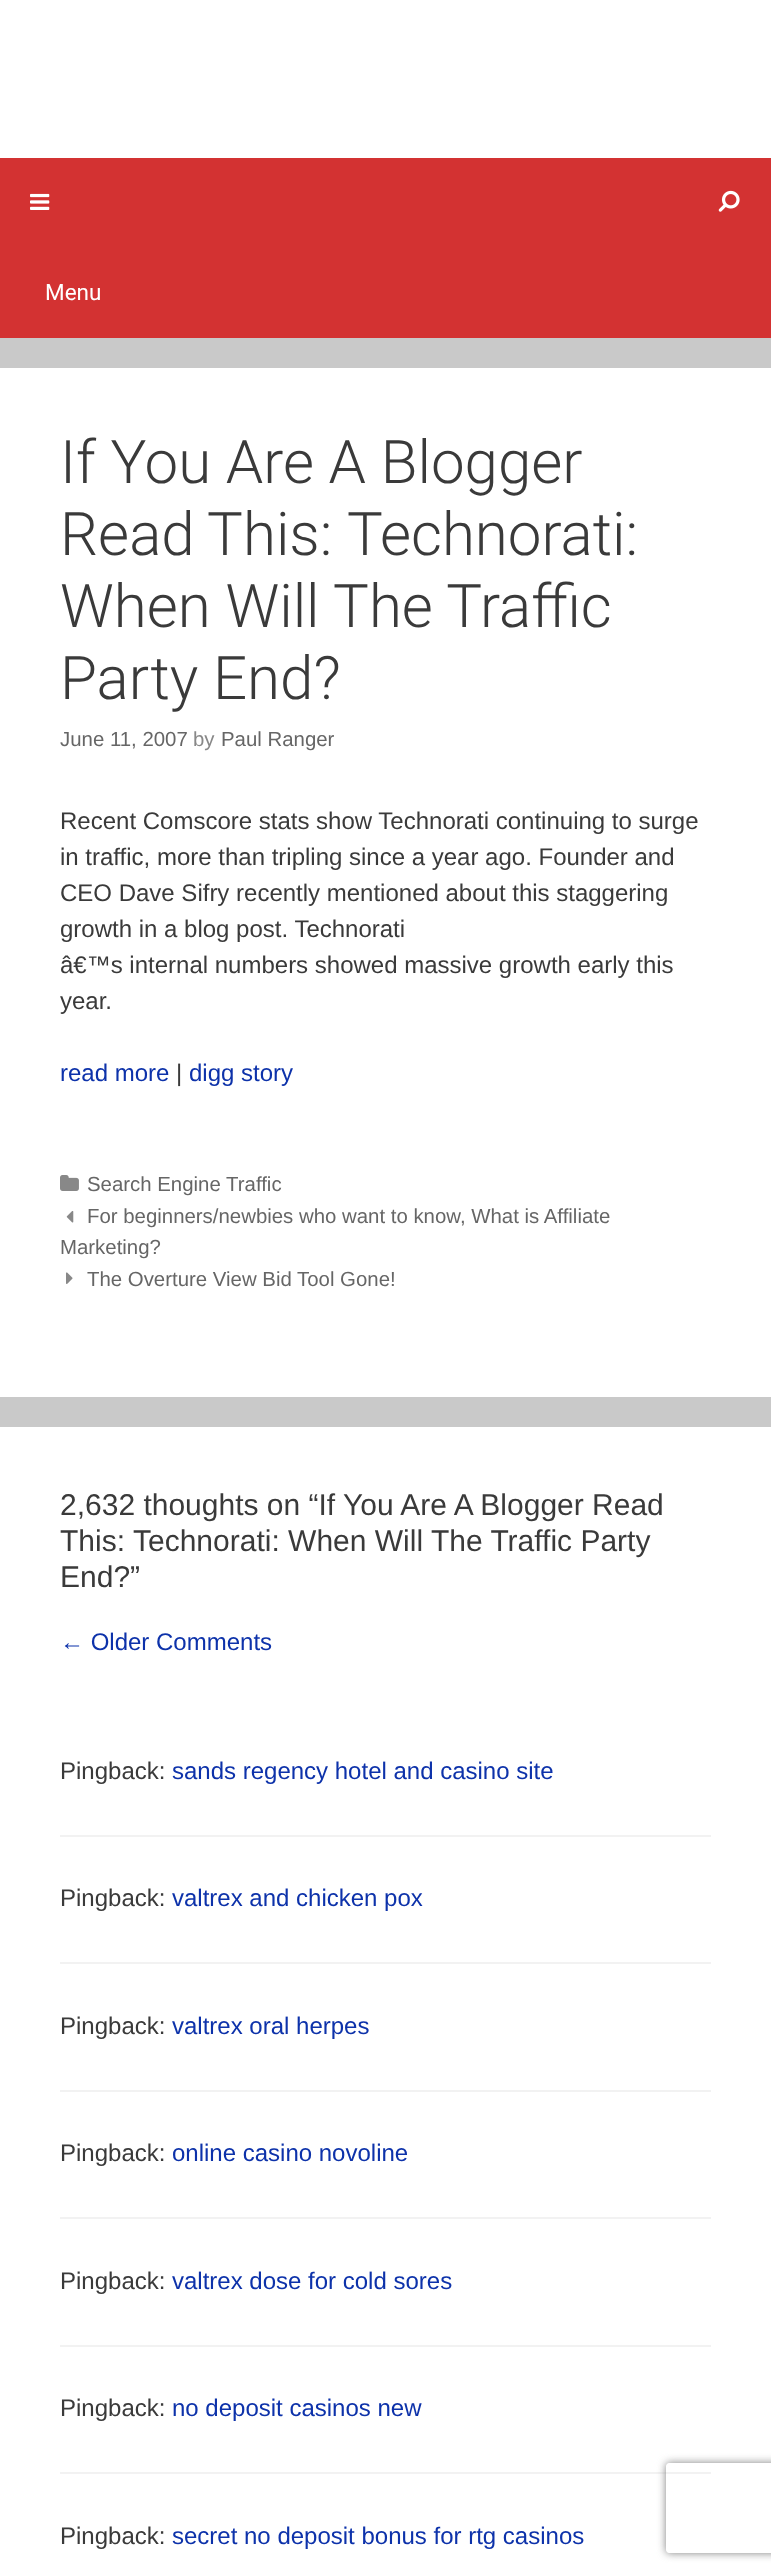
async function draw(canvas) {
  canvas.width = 771
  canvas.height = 2573
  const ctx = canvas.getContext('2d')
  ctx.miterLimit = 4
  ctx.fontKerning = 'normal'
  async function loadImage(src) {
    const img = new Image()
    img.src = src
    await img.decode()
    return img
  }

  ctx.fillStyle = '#c9c9c9'
  ctx.fillRect(0, 0, 771, 2573)
  ctx.fillStyle = '#fff'
  ctx.fillRect(0, 0, 771, 158)
  ctx.fillStyle = '#d33232'
  ctx.fillRect(0, 158, 771, 180)
  ctx.drawImage(await loadImage('image0.png'), 30, 193, 20, 17)
  ctx.drawImage(await loadImage('image1.png'), 718, 190, 22, 22)
  ctx.font = '22.5px Roboto'
  ctx.fillStyle = '#fff'
  ctx.fillText('Menu', 45, 300)
  ctx.fillRect(0, 368, 771, 1029)
  ctx.font = '300 60px Roboto'
  ctx.fillStyle = '#3a3a3a'
  ctx.fillText('If You Are A Blogger', 60, 483)
  ctx.wordSpacing = '-1px'
  ctx.fillText('Read This:', 60, 555)
  ctx.wordSpacing = '0px'
  ctx.fillText('Technorati:', 347, 555)
  ctx.fillText('When Will The Traffic', 60, 627)
  ctx.fillText('Party End?', 60, 699)
  ctx.font = '20.4px Liberation Sans'
  ctx.fillStyle = '#666'
  ctx.fillText('June 11, 2007', 60, 746)
  ctx.fillStyle = '#888'
  ctx.fillText('by', 193, 746)
  ctx.fillStyle = '#666'
  ctx.fillText('Paul Ranger', 221, 746)
  ctx.font = '24px Liberation Sans'
  ctx.fillStyle = '#3a3a3a'
  ctx.fillText('Recent Comscore stats show Technorati continuing to surge', 60, 829)
  ctx.fillText('in traffic, more than tripling since a year ago. Founder and', 60, 865)
  ctx.fillText('CEO Dave Sifry recently mentioned about this staggering', 60, 901)
  ctx.fillText('growth in a blog post. Technorati', 60, 937)
  ctx.fillText('â€™s internal numbers showed massive growth early this', 60, 973)
  ctx.fillText('year.', 60, 1009)
  ctx.fillStyle = '#0d32aa'
  ctx.fillText('read more', 60, 1081)
  ctx.fillStyle = '#3a3a3a'
  ctx.fillText('|', 176, 1081)
  ctx.fillStyle = '#0d32aa'
  ctx.fillText('digg story', 189, 1081)
  ctx.drawImage(await loadImage('image2.png'), 60, 1175, 19, 16)
  ctx.font = '20.4px Liberation Sans'
  ctx.fillStyle = '#666'
  ctx.fillText('Search Engine Traffic', 87, 1191)
  ctx.drawImage(await loadImage('image3.png'), 66, 1211, 8, 12)
  ctx.fillText('For beginners/newbies who want to know, What is Affiliate', 87, 1223)
  ctx.fillText('Marketing?', 60, 1254)
  ctx.drawImage(await loadImage('image4.png'), 66, 1272, 7, 12)
  ctx.fillText('The Overture View Bid Tool Gone!', 87, 1286)
  ctx.fillStyle = '#fff'
  ctx.fillRect(0, 1427, 771, 1146)
  ctx.font = '30px Liberation Sans'
  ctx.fillStyle = '#3a3a3a'
  ctx.fillText('2,632 thoughts on “If You Are A Blogger Read', 60, 1515)
  ctx.fillText('This:', 60, 1551)
  ctx.fillText('Technorati: When Will The Traffic Party', 133, 1551)
  ctx.fillText('End?”', 60, 1587)
  ctx.font = '24px Liberation Sans'
  ctx.fillStyle = '#0d32aa'
  ctx.fillText('← Older Comments', 60, 1650)
  ctx.fillStyle = '#f2f2f2'
  ctx.fillRect(60, 1835, 651, 2)
  ctx.fillStyle = '#3a3a3a'
  ctx.fillText('Pingback:', 60, 1779)
  ctx.fillStyle = '#0d32aa'
  ctx.fillText('sands regency hotel and casino site', 172, 1779)
  ctx.fillStyle = '#f2f2f2'
  ctx.fillRect(60, 1962, 651, 2)
  ctx.fillStyle = '#3a3a3a'
  ctx.fillText('Pingback:', 60, 1906)
  ctx.fillStyle = '#0d32aa'
  ctx.fillText('valtrex and chicken pox', 172, 1906)
  ctx.fillStyle = '#f2f2f2'
  ctx.fillRect(60, 2090, 651, 2)
  ctx.fillStyle = '#3a3a3a'
  ctx.fillText('Pingback:', 60, 2034)
  ctx.fillStyle = '#0d32aa'
  ctx.fillText('valtrex oral herpes', 172, 2034)
  ctx.fillStyle = '#f2f2f2'
  ctx.fillRect(60, 2217, 651, 2)
  ctx.fillStyle = '#3a3a3a'
  ctx.fillText('Pingback:', 60, 2161)
  ctx.fillStyle = '#0d32aa'
  ctx.fillText('online casino novoline', 172, 2161)
  ctx.fillStyle = '#f2f2f2'
  ctx.fillRect(60, 2345, 651, 2)
  ctx.fillStyle = '#3a3a3a'
  ctx.fillText('Pingback:', 60, 2289)
  ctx.fillStyle = '#0d32aa'
  ctx.fillText('valtrex dose for cold sores', 172, 2289)
  ctx.fillStyle = '#f2f2f2'
  ctx.fillRect(60, 2472, 651, 2)
  ctx.fillStyle = '#3a3a3a'
  ctx.fillText('Pingback:', 60, 2416)
  ctx.fillStyle = '#0d32aa'
  ctx.fillText('no deposit casinos new', 172, 2416)
  ctx.fillStyle = '#3a3a3a'
  ctx.fillText('Pingback:', 60, 2544)
  ctx.fillStyle = '#0d32aa'
  ctx.fillText('secret no deposit bonus for rtg casinos', 172, 2544)
  ctx.save()
  ctx.beginPath()
  ctx.moveTo(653, 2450)
  ctx.lineTo(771, 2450)
  ctx.lineTo(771, 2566)
  ctx.lineTo(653, 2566)
  ctx.closePath()
  ctx.moveTo(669, 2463)
  ctx.lineTo(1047, 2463)
  ctx.bezierCurveTo(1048.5, 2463, 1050, 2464.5, 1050, 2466)
  ctx.lineTo(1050, 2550)
  ctx.bezierCurveTo(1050, 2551.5, 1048.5, 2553, 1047, 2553)
  ctx.lineTo(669, 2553)
  ctx.bezierCurveTo(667.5, 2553, 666, 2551.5, 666, 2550)
  ctx.lineTo(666, 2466)
  ctx.bezierCurveTo(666, 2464.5, 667.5, 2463, 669, 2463)
  ctx.closePath()
  ctx.clip('evenodd')
  ctx.fillStyle = '#808080'
  ctx.filter = 'blur(4px)'
  ctx.beginPath()
  ctx.roundRect(666, 2463, 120, 90, 3)
  ctx.fill()
  ctx.filter = 'none'
  ctx.restore()
}

draw(document.querySelector('canvas'))
